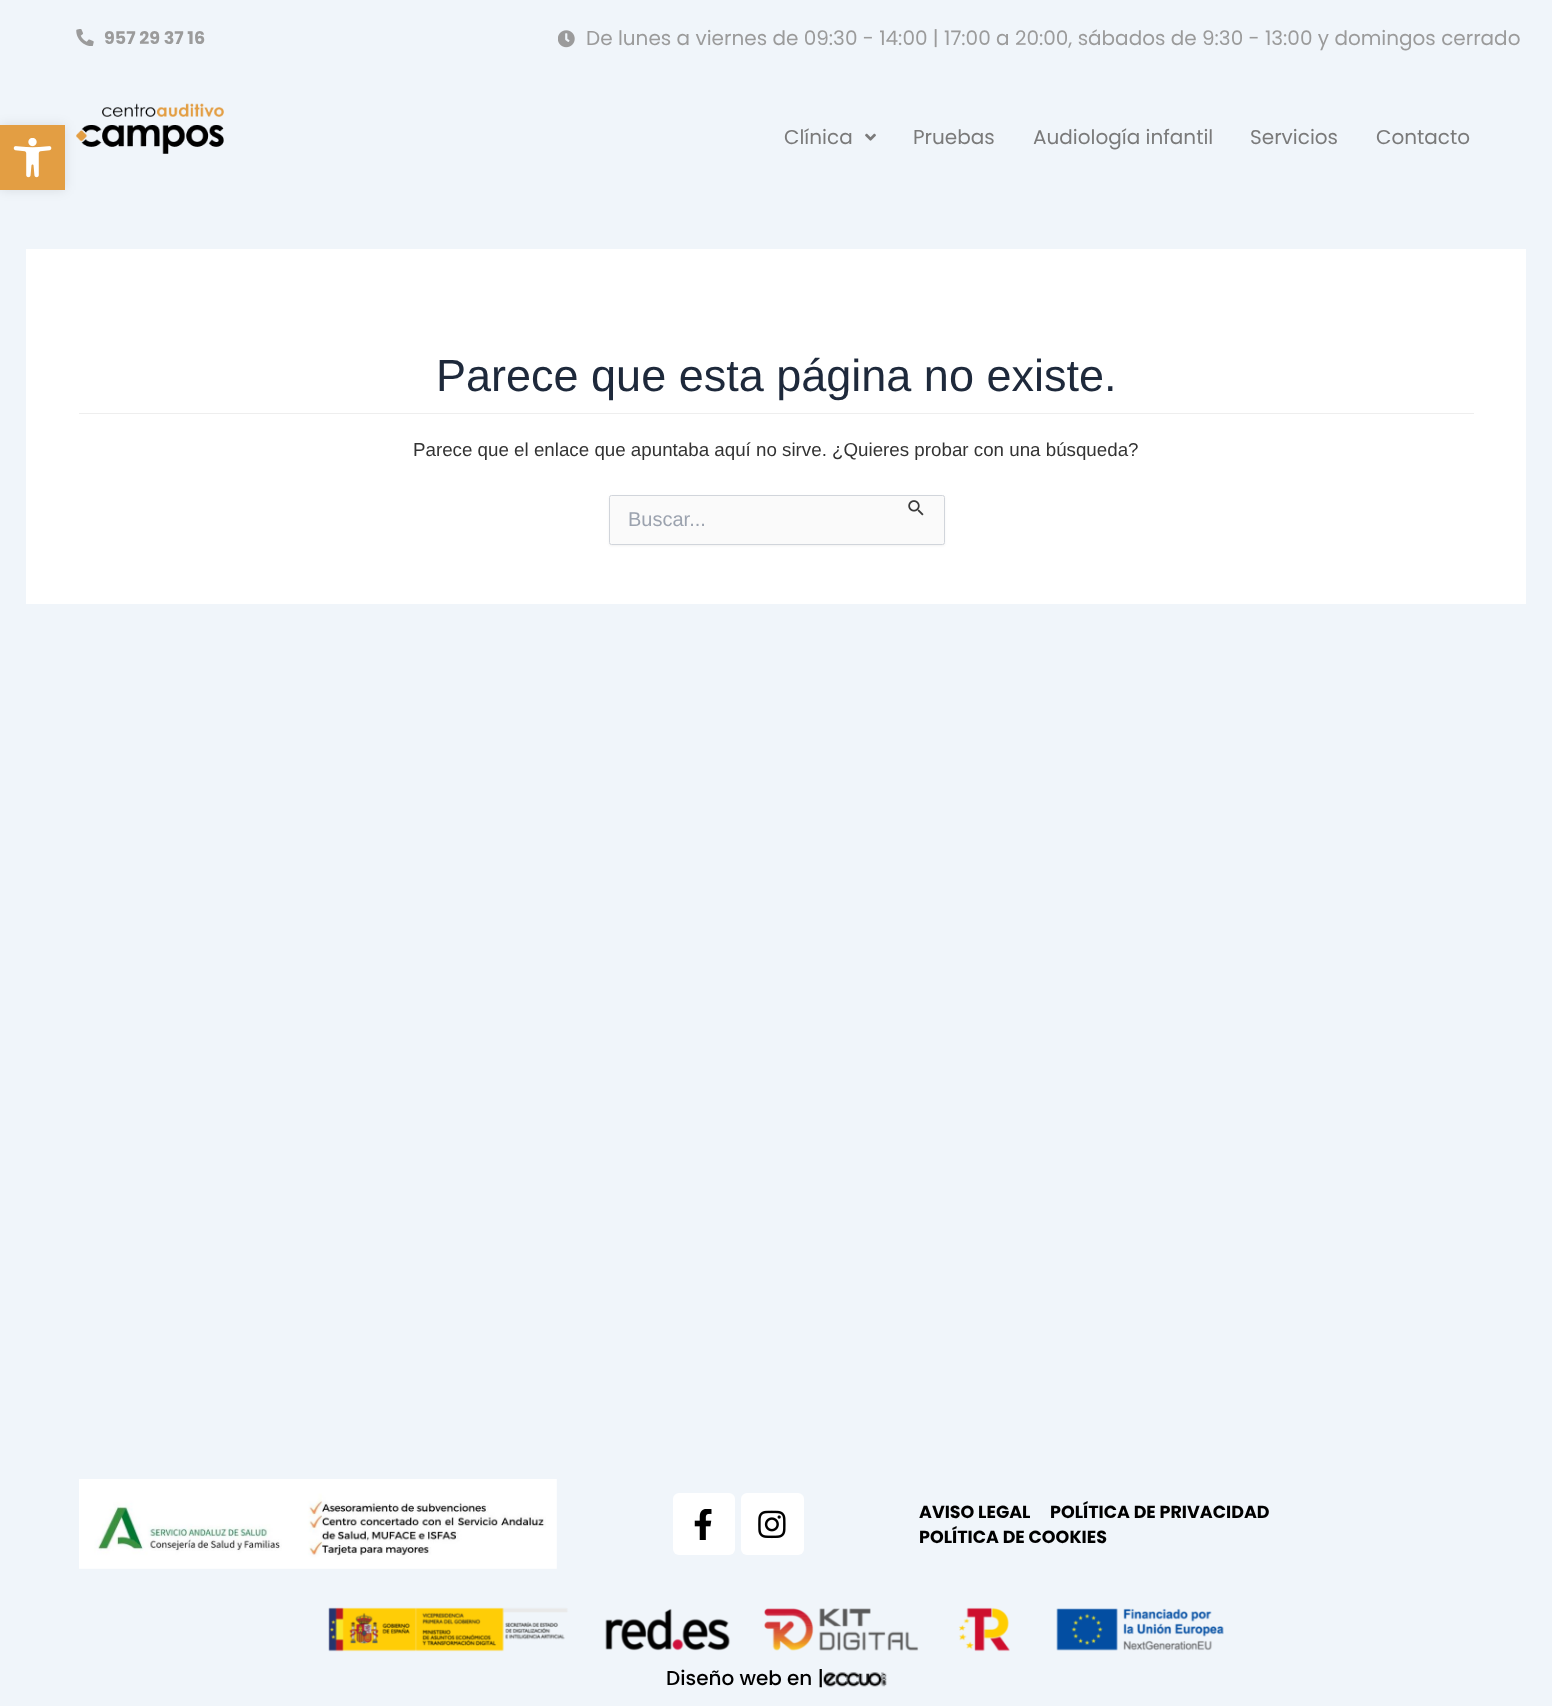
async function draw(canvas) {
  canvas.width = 1552
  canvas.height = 1706
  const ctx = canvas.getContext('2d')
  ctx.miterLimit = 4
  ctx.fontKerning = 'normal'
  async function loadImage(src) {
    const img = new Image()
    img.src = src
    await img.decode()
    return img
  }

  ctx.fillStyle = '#f0f5fa'
  ctx.fillRect(0, 0, 1552, 1706)
  ctx.drawImage(await loadImage('image3.png'), 76, 103, 148, 51)
  ctx.fillStyle = '#0000001a'
  ctx.filter = 'blur(6px)'
  ctx.beginPath()
  ctx.rect(0, 125, 65, 65)
  ctx.fill()
  ctx.filter = 'none'
  ctx.fillStyle = '#e39e43'
  ctx.fillRect(0, 125, 65, 65)
  ctx.drawImage(await loadImage('image0.png'), 13, 138, 39, 40)
  ctx.drawImage(await loadImage('image1.png'), 76, 29, 18, 17)
  ctx.font = 'bold 17.5px Poppins'
  ctx.fillStyle = '#9b9b9b'
  ctx.fillText('957 29 37 16', 104, 44)
  ctx.drawImage(await loadImage('image2.png'), 558, 30, 17, 18)
  ctx.font = '20px Poppins'
  ctx.fillText('De lunes a viernes de 09:30 - 14:00 | 17:00 a 20:00, sábados de 9:30 - 13:00 y domingos cerrado', 586, 45)
  ctx.fillStyle = '#7a7a7a'
  ctx.fillText('Clínica', 784, 144)
  ctx.drawImage(await loadImage('image4.png'), 865, 133, 11, 8)
  ctx.fillText('Pruebas', 913, 144)
  ctx.fillText('Audiología infantil', 1033, 144)
  ctx.fillText('Servicios', 1250, 144)
  ctx.fillText('Contacto', 1376, 144)
  ctx.fillStyle = '#fff'
  ctx.fillRect(26, 249, 1500, 355)
  ctx.fillStyle = '#eee'
  ctx.fillRect(79, 413, 1395, 1)
  ctx.font = '45px Liberation Sans'
  ctx.fillStyle = '#1e293b'
  ctx.fillText('Parece que esta página no existe.', 436, 391)
  ctx.font = '18.75px Liberation Sans'
  ctx.fillStyle = '#333'
  ctx.fillText('Parece que el enlace que apuntaba aquí no sirve. ¿Quieres probar con una búsqueda?', 413, 456)
  ctx.fillStyle = '#0000000d'
  ctx.filter = 'blur(1px)'
  ctx.beginPath()
  ctx.roundRect(609, 496, 336, 50, 2.5)
  ctx.fill()
  ctx.filter = 'none'
  ctx.fillStyle = '#fafafa'
  ctx.beginPath()
  ctx.roundRect(609.5, 495.5, 335, 49, 2)
  ctx.fill()
  ctx.strokeStyle = '#d1d5db'
  ctx.stroke()
  ctx.drawImage(await loadImage('image5.png'), 908, 500, 16, 16)
  ctx.font = '20px Liberation Sans'
  ctx.fillStyle = '#9ca3af'
  ctx.fillText('Buscar...', 628, 526)
  ctx.drawImage(await loadImage('image6.png'), 79, 1479, 478, 90)
  ctx.fillStyle = '#fff'
  ctx.beginPath()
  ctx.roundRect(673, 1493, 62, 62, 6)
  ctx.fill()
  ctx.drawImage(await loadImage('image7.png'), 694, 1509, 18, 31)
  ctx.beginPath()
  ctx.roundRect(741, 1493, 63, 62, 6)
  ctx.fill()
  ctx.drawImage(await loadImage('image8.png'), 758, 1510, 28, 29)
  ctx.font = 'bold 17.5px Poppins'
  ctx.fillStyle = '#000'
  ctx.fillText('AVISO LEGAL', 919, 1518)
  ctx.fillText('POLÍTICA DE PRIVACIDAD', 1050, 1518)
  ctx.fillText('POLÍTICA DE COOKIES', 919, 1543)
  ctx.drawImage(await loadImage('image9.png'), 328, 1607, 896, 45)
  ctx.font = '500 20px Poppins'
  ctx.fillText('Diseño web en |', 666, 1685)
  ctx.drawImage(await loadImage('image10.png'), 823, 1672, 64, 15)
}

draw(document.querySelector('canvas'))
